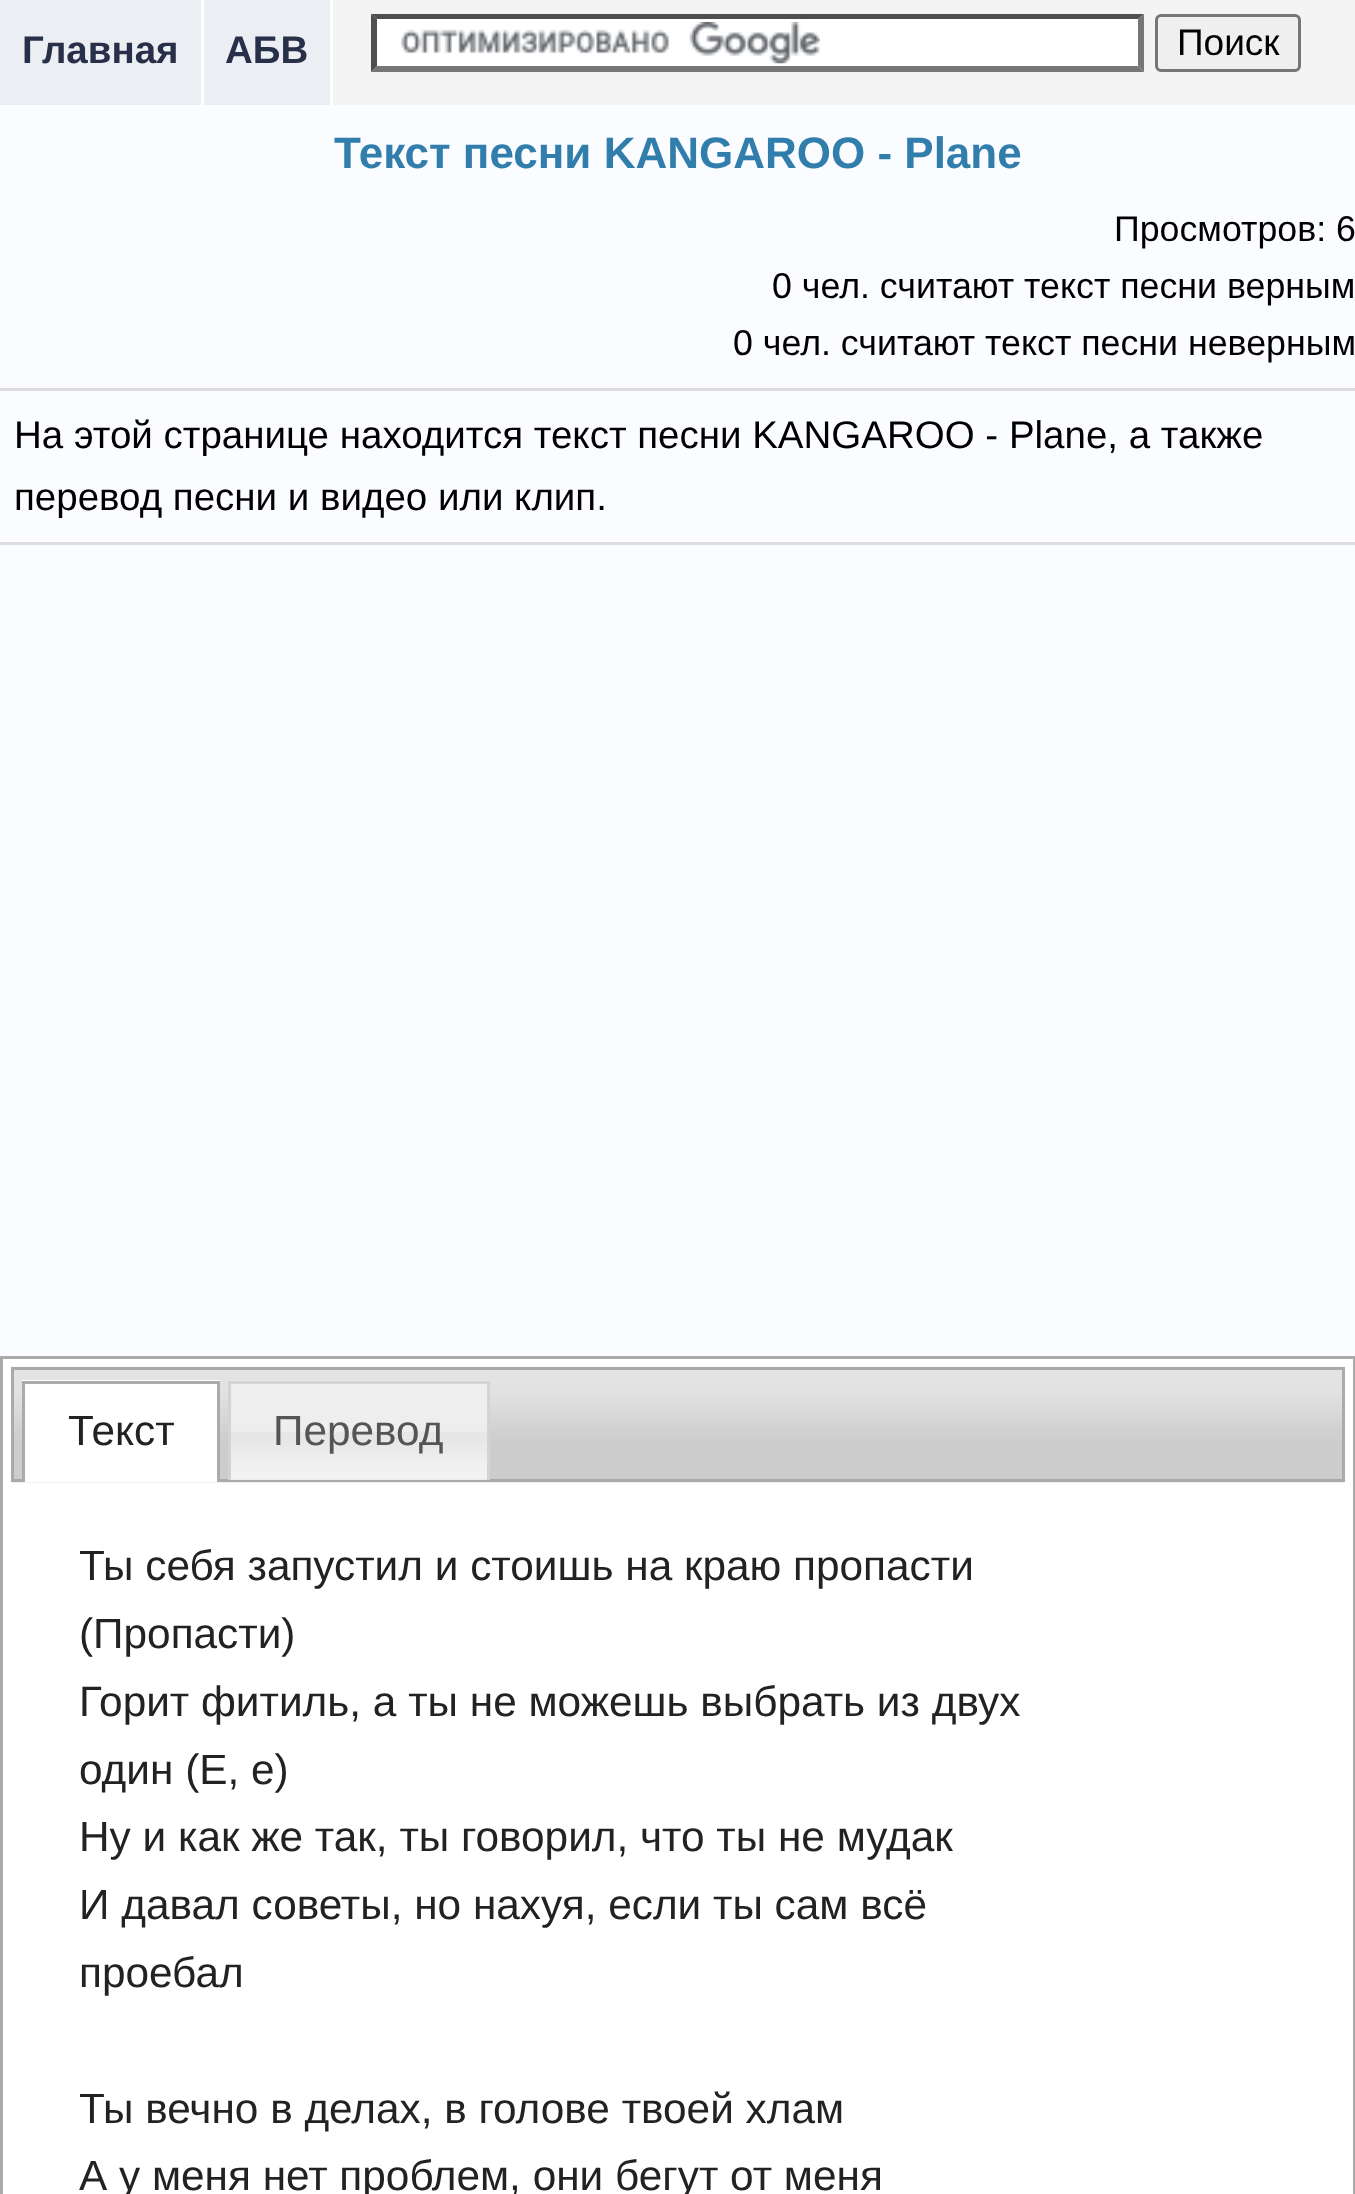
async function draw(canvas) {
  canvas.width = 1355
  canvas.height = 2194
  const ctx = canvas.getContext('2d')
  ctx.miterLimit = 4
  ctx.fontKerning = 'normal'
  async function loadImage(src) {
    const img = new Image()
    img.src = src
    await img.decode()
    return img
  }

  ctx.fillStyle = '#fafcff'
  ctx.fillRect(0, 0, 1355, 2194)
  ctx.fillStyle = '#f4f4f4'
  ctx.fillRect(333, 0, 1022, 105)
  ctx.fillStyle = '#ebeff4'
  ctx.fillRect(0, 0, 201, 105)
  ctx.fillStyle = '#fff'
  ctx.fillRect(201, 0, 3, 105)
  ctx.font = 'bold 38.5px Liberation Sans'
  ctx.fillStyle = '#283049'
  ctx.fillText('Главная', 22, 63)
  ctx.fillStyle = '#ebeff4'
  ctx.fillRect(204, 0, 126, 105)
  ctx.fillStyle = '#fff'
  ctx.fillRect(330, 0, 3, 105)
  ctx.fillStyle = '#283049'
  ctx.fillText('АБВ', 225, 63)
  ctx.fillStyle = '#fff'
  ctx.fillRect(371, 14, 773, 58)
  ctx.drawImage(await loadImage('image0.png'), 401, 22, 419, 42)
  ctx.fillStyle = '#4f4f4f'
  ctx.beginPath()
  ctx.moveTo(371, 14)
  ctx.lineTo(1144, 14)
  ctx.lineTo(1138, 19)
  ctx.lineTo(377, 19)
  ctx.closePath()
  ctx.fill()
  ctx.fillStyle = '#767676'
  ctx.beginPath()
  ctx.moveTo(1144, 14)
  ctx.lineTo(1144, 72)
  ctx.lineTo(1138, 66)
  ctx.lineTo(1138, 19)
  ctx.closePath()
  ctx.fill()
  ctx.beginPath()
  ctx.moveTo(1144, 72)
  ctx.lineTo(371, 72)
  ctx.lineTo(377, 66)
  ctx.lineTo(1138, 66)
  ctx.closePath()
  ctx.fill()
  ctx.fillStyle = '#4f4f4f'
  ctx.beginPath()
  ctx.moveTo(371, 72)
  ctx.lineTo(371, 14)
  ctx.lineTo(377, 19)
  ctx.lineTo(377, 66)
  ctx.closePath()
  ctx.fill()
  ctx.fillStyle = '#efefef'
  ctx.beginPath()
  ctx.roundRect(1156.5, 15.5, 143, 55, 4.5)
  ctx.fill()
  ctx.strokeStyle = '#767676'
  ctx.lineWidth = 3
  ctx.stroke()
  ctx.font = '37px Liberation Sans'
  ctx.fillStyle = '#000'
  ctx.fillText('Поиск', 1177, 55)
  ctx.font = 'bold 44px Liberation Sans'
  ctx.fillStyle = '#317eac'
  ctx.fillText('Текст песни KANGAROO - Plane', 334, 168)
  ctx.font = '35.75px Liberation Sans'
  ctx.fillStyle = '#000'
  ctx.fillText('Просмотров: 6', 1114, 241)
  ctx.fillText('0 чел. считают текст песни верным', 772, 298)
  ctx.fillText('0 чел. считают текст песни неверным', 733, 355)
  ctx.fillStyle = '#ddd'
  ctx.fillRect(0, 388, 1355, 3)
  ctx.fillRect(0, 542, 1355, 3)
  ctx.font = '38.5px Liberation Sans'
  ctx.fillStyle = '#000'
  ctx.fillText('На этой странице находится текст песни KANGAROO - Plane, а также', 14, 448)
  ctx.fillText('перевод песни и видео или клип.', 14, 510)
  ctx.fillStyle = '#fff'
  ctx.beginPath()
  ctx.rect(1.5, 1357.5, 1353, 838)
  ctx.fill()
  ctx.strokeStyle = '#aaa'
  ctx.stroke()
  ctx.drawImage(await loadImage('image1.png'), 11, 1366, 1334, 117)
  ctx.strokeRect(12.5, 1368.5, 1331, 112)
  ctx.fillRect(22, 1380, 198, 102)
  ctx.fillStyle = '#aaa'
  ctx.fillRect(22, 1381, 198, 3)
  ctx.fillRect(217, 1381, 3, 101)
  ctx.fillRect(22, 1381, 3, 101)
  ctx.font = '42.35px Liberation Sans'
  ctx.fillStyle = '#222'
  ctx.fillText('Текст', 68, 1445)
  ctx.fillStyle = '#e6e6e6'
  ctx.fillRect(231, 1479, 256, 1)
  ctx.drawImage(await loadImage('image2.png'), 228, 1380, 262, 100)
  ctx.fillStyle = '#d3d3d3'
  ctx.fillRect(228, 1381, 262, 3)
  ctx.fillRect(487, 1381, 3, 99)
  ctx.fillRect(228, 1381, 3, 99)
  ctx.fillStyle = '#555'
  ctx.fillText('Перевод', 273, 1445)
  ctx.fillStyle = '#222'
  ctx.fillText('Ты себя запустил и стоишь на краю пропасти', 79, 1580)
  ctx.fillText('(Пропасти)', 79, 1648)
  ctx.fillText('Горит фитиль, а ты не можешь выбрать из двух', 79, 1716)
  ctx.fillText('один (Е, е)', 79, 1784)
  ctx.fillText('Ну и как же так, ты говорил, что ты не мудак', 79, 1851)
  ctx.fillText('И давал советы, но нахуя, если ты сам всё', 79, 1919)
  ctx.fillText('проебал', 79, 1987)
  ctx.fillText('Ты вечно в делах, в голове твоей хлам', 79, 2123)
  ctx.fillText('А у меня нет проблем, они бегут от меня', 79, 2190)
}

draw(document.querySelector('canvas'))
